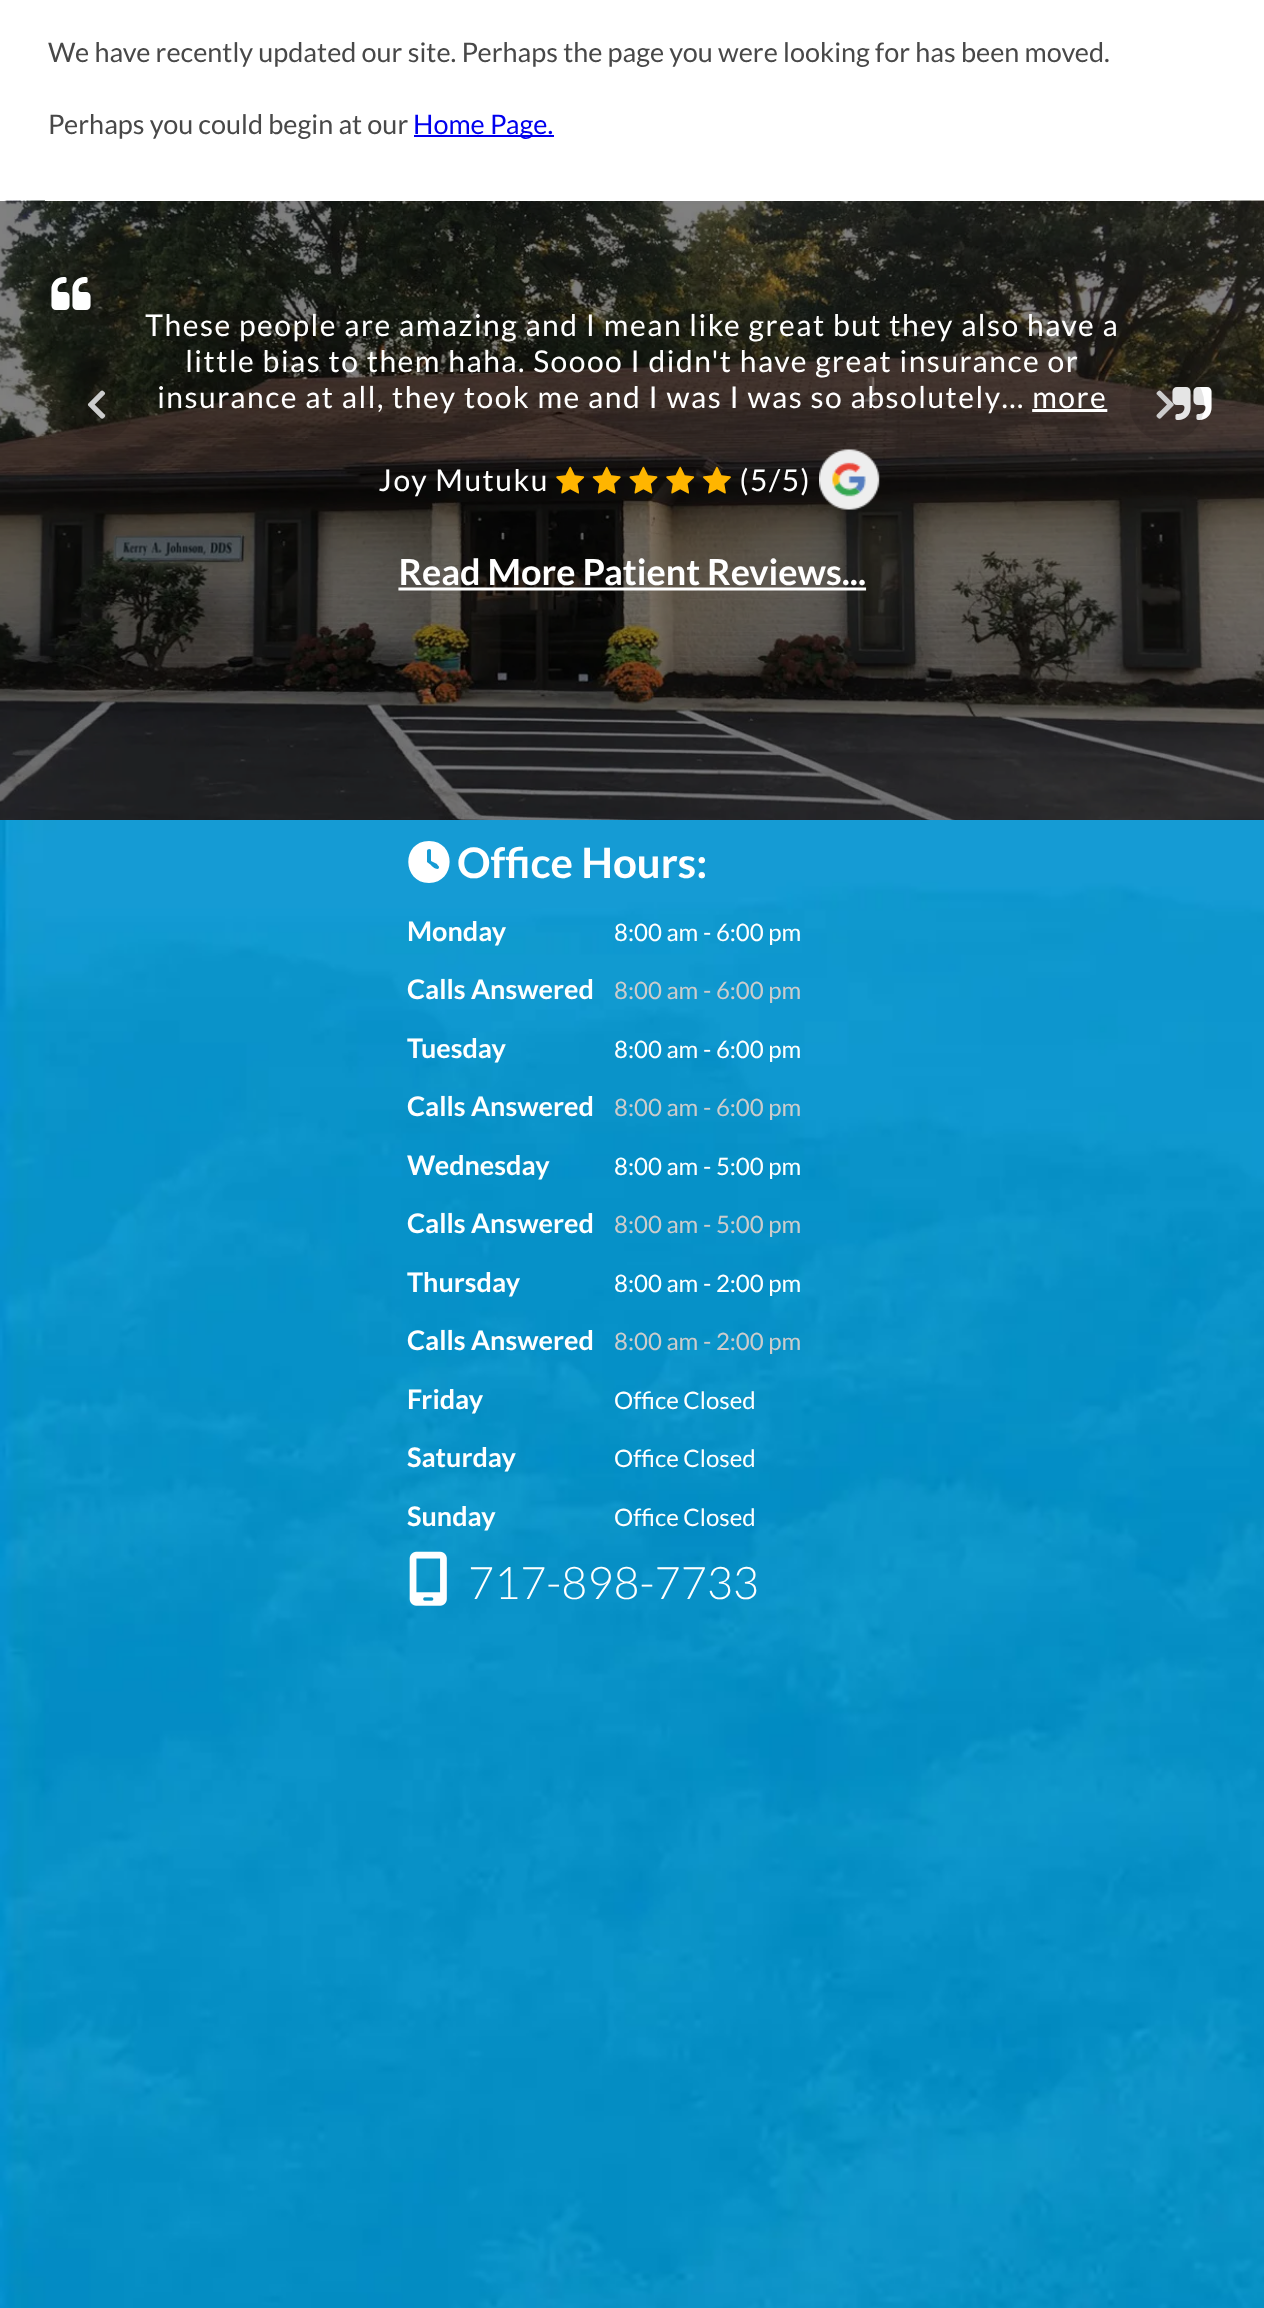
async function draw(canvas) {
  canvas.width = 1264
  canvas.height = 2308
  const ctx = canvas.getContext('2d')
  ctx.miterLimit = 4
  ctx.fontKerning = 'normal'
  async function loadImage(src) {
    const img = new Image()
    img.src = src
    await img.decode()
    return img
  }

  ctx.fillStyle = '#fff'
  ctx.fillRect(0, 0, 1264, 2308)
  ctx.drawImage(await loadImage('image0.png'), 0, 200, 1264, 620)
  ctx.fillRect(45, 200, 1175, 1)
  ctx.font = '27px Lato'
  ctx.fillStyle = '#484848'
  ctx.fillText('We have recently updated our site. Perhaps the page you were looking for has been moved.', 48, 62)
  ctx.fillText('Perhaps you could begin at our', 48, 134)
  ctx.fillStyle = '#00e'
  ctx.fillRect(414, 135, 140, 2)
  ctx.fillText('Home Page.', 413, 134)
  ctx.drawImage(await loadImage('image1.png'), 51, 277, 1161, 314)
  ctx.drawImage(await loadImage('image2.png'), 0, 820, 1264, 1488)
  ctx.fillStyle = '#fff'
  ctx.beginPath()
  ctx.moveTo(429, 841)
  ctx.bezierCurveTo(457, 841, 456, 883, 429, 883)
  ctx.bezierCurveTo(402, 883, 401, 841, 429, 841)
  ctx.closePath()
  ctx.moveTo(427, 851)
  ctx.lineTo(427, 862)
  ctx.lineTo(431, 865)
  ctx.bezierCurveTo(431, 866, 439, 872, 439, 867)
  ctx.bezierCurveTo(439, 866, 437, 865, 437, 864)
  ctx.lineTo(431, 861)
  ctx.lineTo(431, 850)
  ctx.bezierCurveTo(430, 848, 427, 849, 427, 851)
  ctx.closePath()
  ctx.fill()
  ctx.font = 'bold 42px Lato'
  ctx.fillText('Office Hours:', 457, 878)
  ctx.font = 'bold 27px Lato'
  ctx.fillText('Monday', 407, 941)
  ctx.font = '24px Lato'
  ctx.fillText('8:00 am - 6:00 pm', 614, 941)
  ctx.font = 'bold 27px Lato'
  ctx.fillText('Calls Answered', 407, 999)
  ctx.font = '24px Lato'
  ctx.fillStyle = '#ccc'
  ctx.fillText('8:00 am - 6:00 pm', 614, 999)
  ctx.font = 'bold 27px Lato'
  ctx.fillStyle = '#fff'
  ctx.fillText('Tuesday', 407, 1058)
  ctx.font = '24px Lato'
  ctx.fillText('8:00 am - 6:00 pm', 614, 1058)
  ctx.font = 'bold 27px Lato'
  ctx.fillText('Calls Answered', 407, 1116)
  ctx.font = '24px Lato'
  ctx.fillStyle = '#ccc'
  ctx.fillText('8:00 am - 6:00 pm', 614, 1116)
  ctx.font = 'bold 27px Lato'
  ctx.fillStyle = '#fff'
  ctx.fillText('Wednesday', 407, 1175)
  ctx.font = '24px Lato'
  ctx.fillText('8:00 am - 5:00 pm', 614, 1175)
  ctx.font = 'bold 27px Lato'
  ctx.fillText('Calls Answered', 407, 1233)
  ctx.font = '24px Lato'
  ctx.fillStyle = '#ccc'
  ctx.fillText('8:00 am - 5:00 pm', 614, 1233)
  ctx.font = 'bold 27px Lato'
  ctx.fillStyle = '#fff'
  ctx.fillText('Thursday', 407, 1292)
  ctx.font = '24px Lato'
  ctx.fillText('8:00 am - 2:00 pm', 614, 1292)
  ctx.font = 'bold 27px Lato'
  ctx.fillText('Calls Answered', 407, 1350)
  ctx.font = '24px Lato'
  ctx.fillStyle = '#ccc'
  ctx.fillText('8:00 am - 2:00 pm', 614, 1350)
  ctx.font = 'bold 27px Lato'
  ctx.fillStyle = '#fff'
  ctx.fillText('Friday', 407, 1409)
  ctx.font = '24px Lato'
  ctx.fillText('Office Closed', 614, 1409)
  ctx.font = 'bold 27px Lato'
  ctx.fillText('Saturday', 407, 1467)
  ctx.font = '24px Lato'
  ctx.fillText('Office Closed', 614, 1467)
  ctx.font = 'bold 27px Lato'
  ctx.fillText('Sunday', 407, 1526)
  ctx.font = '24px Lato'
  ctx.fillText('Office Closed', 614, 1526)
  ctx.drawImage(await loadImage('image3.png'), 409, 1551, 38, 55)
  ctx.font = '300 45px Lato'
  ctx.fillText('717-898-7733', 468, 1599)
}

draw(document.querySelector('canvas'))
